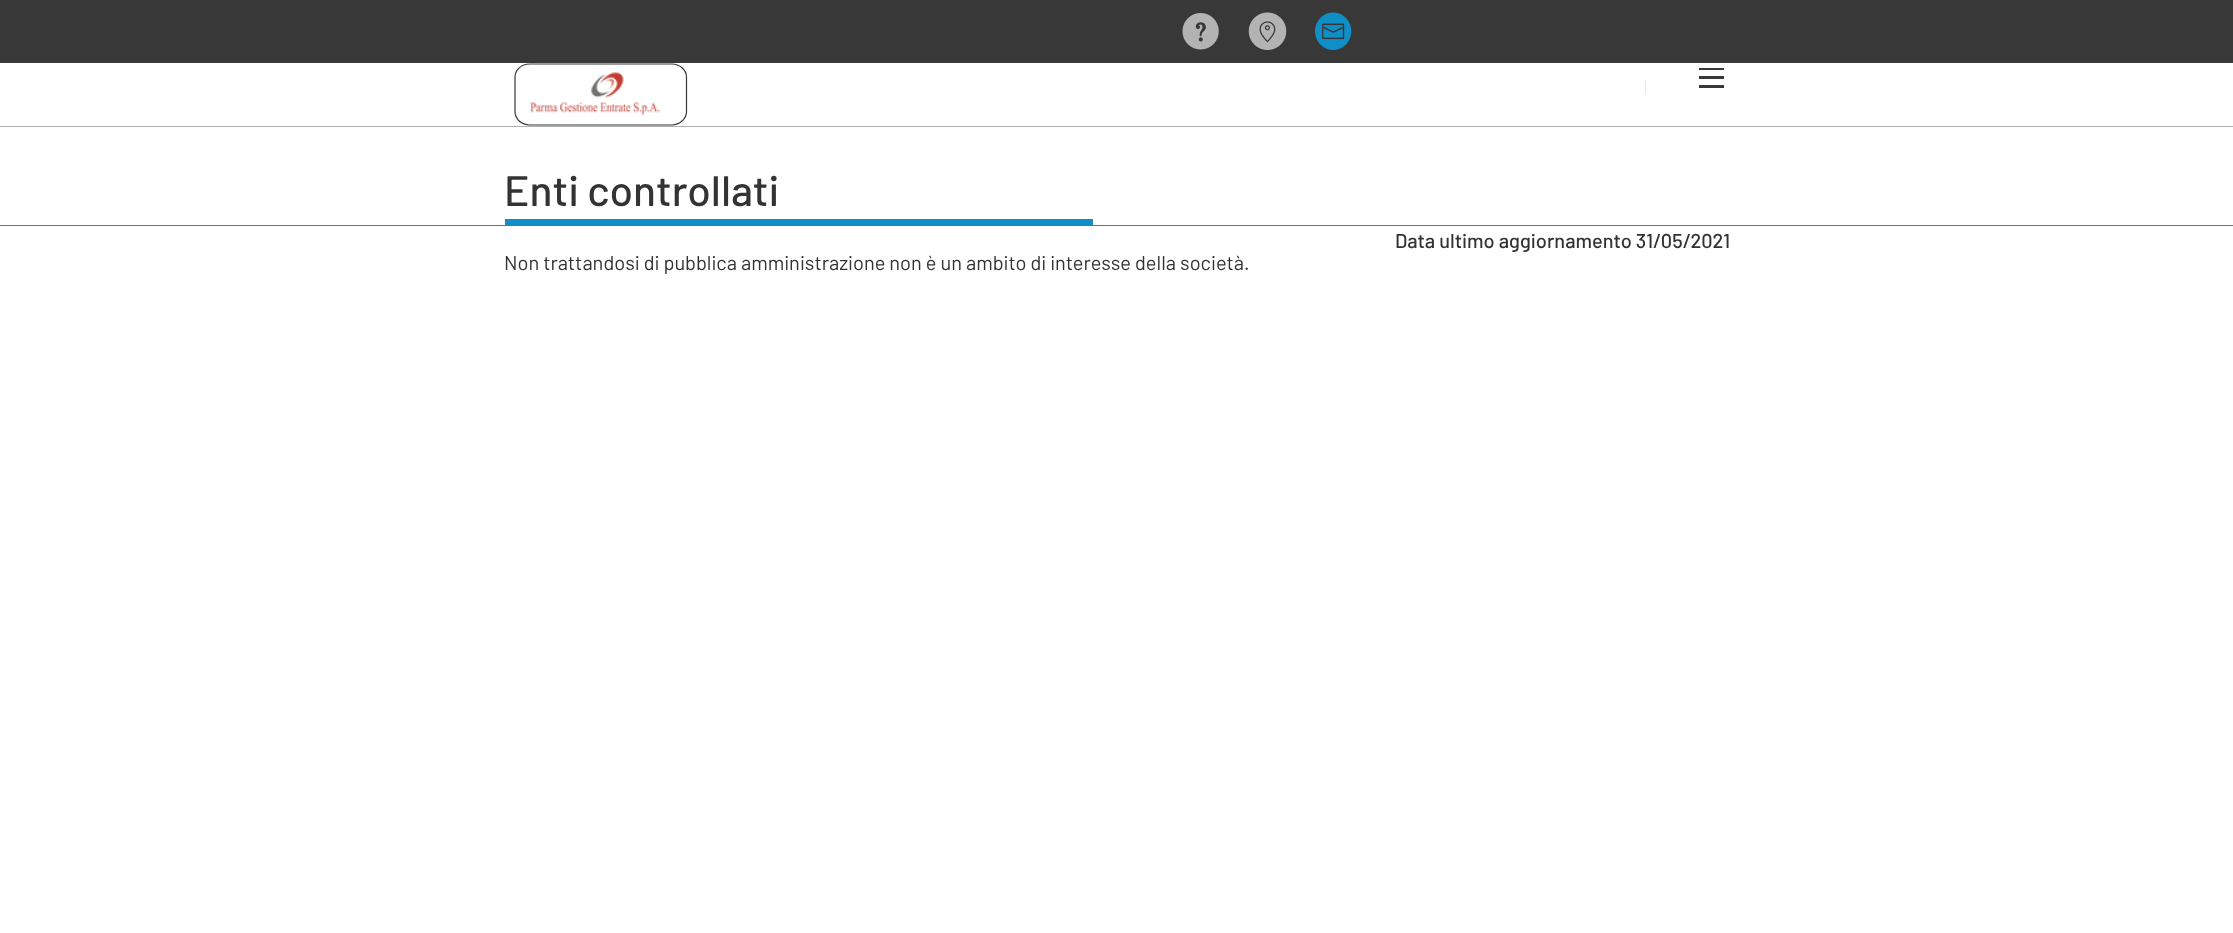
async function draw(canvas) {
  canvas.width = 2233
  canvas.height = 933
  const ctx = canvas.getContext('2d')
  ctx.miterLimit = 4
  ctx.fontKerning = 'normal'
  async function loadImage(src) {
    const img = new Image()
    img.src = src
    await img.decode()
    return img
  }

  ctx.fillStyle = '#fff'
  ctx.fillRect(0, 0, 2233, 933)
  ctx.fillStyle = '#383838'
  ctx.fillRect(0, 0, 2233, 63)
  ctx.drawImage(await loadImage('image0.png'), 1182, 13, 37, 37)
  ctx.drawImage(await loadImage('image1.png'), 1248, 12, 39, 38)
  ctx.drawImage(await loadImage('image2.png'), 1315, 12, 37, 38)
  ctx.beginPath()
  ctx.moveTo(672, 125)
  ctx.lineTo(529.5, 125)
  ctx.bezierCurveTo(521.5, 125, 515, 119, 515, 111.5)
  ctx.lineTo(515, 77)
  ctx.bezierCurveTo(515, 70, 521.5, 64, 529.5, 64)
  ctx.lineTo(672, 64)
  ctx.bezierCurveTo(679.5, 64, 686.5, 69.5, 686.5, 77)
  ctx.lineTo(686.5, 111.5)
  ctx.bezierCurveTo(686.5, 119, 679.5, 125, 672, 125)
  ctx.closePath()
  ctx.strokeStyle = '#383838'
  ctx.lineWidth = 1.2
  ctx.stroke()
  ctx.fillRect(1699, 85, 25, 3)
  ctx.fillRect(1699, 68, 25, 2)
  ctx.fillRect(1699, 76, 25, 3)
  ctx.drawImage(await loadImage('image3.png'), 530, 72, 131, 44)
  ctx.fillStyle = '#e8e8e8'
  ctx.fillRect(1645, 80, 1, 13)
  ctx.fillStyle = '#afafaf'
  ctx.fillRect(0, 126, 2233, 1)
  ctx.font = '500 42.5px Barlow'
  ctx.fillStyle = '#333'
  ctx.fillText('Enti controllati', 504, 206)
  ctx.fillStyle = '#108ec8'
  ctx.fillRect(505, 219, 588, 6)
  ctx.fillRect(0, 225, 2233, 1)
  ctx.font = '500 20px Barlow'
  ctx.fillStyle = '#333'
  ctx.fillText('Data ultimo aggiornamento 31/05/2021', 1395, 248)
  ctx.font = '20px Barlow'
  ctx.fillText('Non trattandosi di pubblica amministrazione non è un ambito di interesse della società.', 504, 270)
}

draw(document.querySelector('canvas'))
